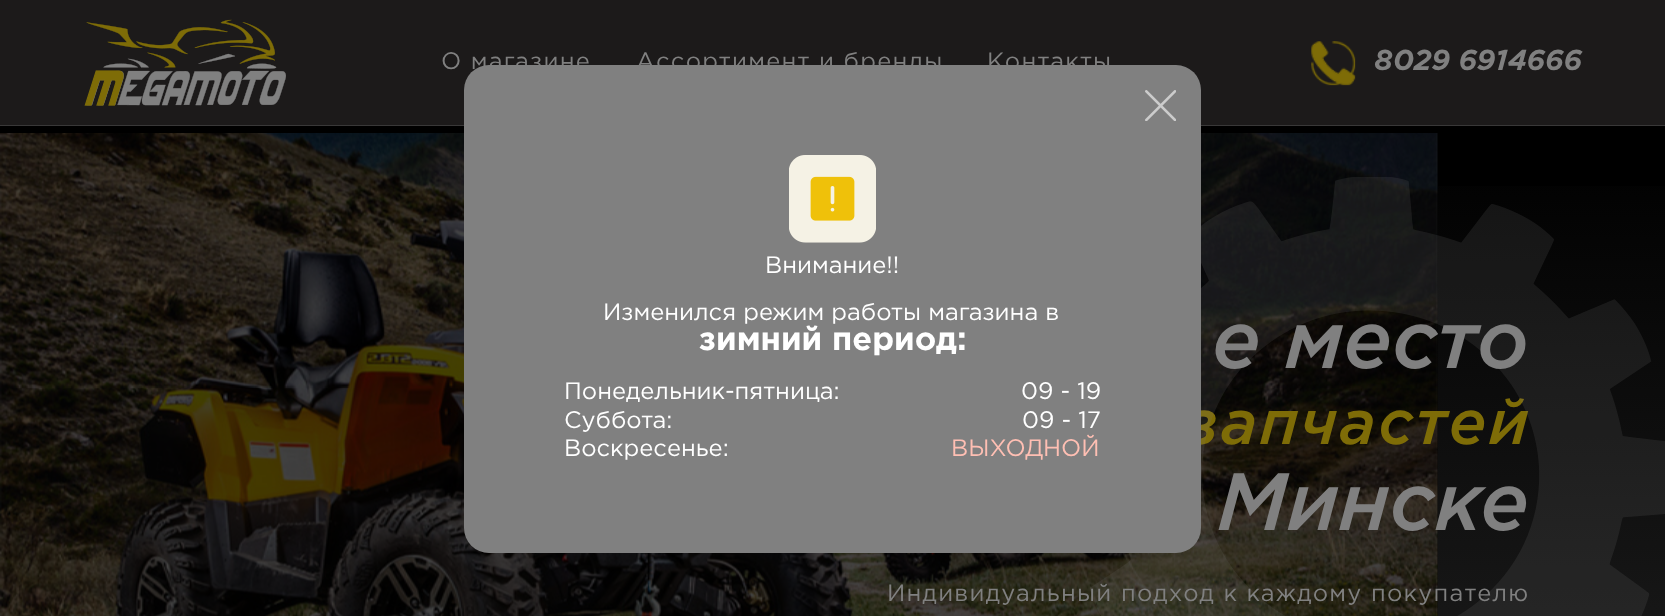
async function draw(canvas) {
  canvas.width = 1665
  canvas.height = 616
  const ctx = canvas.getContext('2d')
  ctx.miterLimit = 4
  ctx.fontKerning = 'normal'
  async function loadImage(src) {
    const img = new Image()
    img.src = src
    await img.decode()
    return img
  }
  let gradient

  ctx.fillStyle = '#000'
  ctx.fillRect(0, 0, 1665, 616)
  ctx.fillStyle = '#1c1a1a'
  ctx.fillRect(0, 0, 1665, 125)
  ctx.fillStyle = '#393838'
  ctx.fillRect(0, 125, 1665, 1)
  ctx.drawImage(await loadImage('image0.png'), 84, 19, 202, 87)
  ctx.letterSpacing = '1.25px'
  ctx.font = '23.75px Gotham'
  ctx.fillStyle = '#808080'
  ctx.fillText('О магазине', 441, 69)
  ctx.fillText('Ассортимент и бренды', 636, 69)
  ctx.fillText('Контакты', 987, 69)
  ctx.drawImage(await loadImage('image1.png'), 1311, 41, 45, 45)
  ctx.letterSpacing = '0px'
  ctx.font = 'italic bold 28.75px Gotham'
  ctx.fillText('8029 6914666', 1374, 70)
  gradient = ctx.createLinearGradient(833, 132, 833, 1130)
  gradient.addColorStop(0, '#000')
  gradient.addColorStop(0.5, '#0c0c0c')
  gradient.addColorStop(1, '#000')
  ctx.fillStyle = gradient
  ctx.fillRect(1437, 236, 1, 380)
  ctx.drawImage(await loadImage('image4.png'), 0, 133, 1438, 483)
  gradient = ctx.createLinearGradient(833, 132, 833, 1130)
  gradient.addColorStop(0, '#000')
  gradient.addColorStop(0.5, '#171717')
  gradient.addColorStop(1, '#000')
  ctx.fillStyle = gradient
  ctx.fillRect(1438, 186, 227, 430)
  ctx.font = 'italic 500 81px Gotham'
  ctx.fillStyle = '#808080'
  ctx.fillText('е место', 1212, 368)
  ctx.letterSpacing = '2.5px'
  ctx.font = 'italic 500 62.5px Gotham'
  ctx.fillStyle = '#7e6c07'
  ctx.fillText('запчастей', 1186, 444)
  ctx.letterSpacing = '0px'
  ctx.font = 'italic 500 81px Gotham'
  ctx.fillStyle = '#808080'
  ctx.fillText('Минске', 1217, 530)
  ctx.letterSpacing = '1.25px'
  ctx.font = '23.75px Gotham'
  ctx.fillText('Индивидуальный подход к каждому покупателю', 887, 601)
  ctx.drawImage(await loadImage('image5.png'), 1090, 177, 575, 439)
  ctx.beginPath()
  ctx.roundRect(464, 65, 737, 488, 25)
  ctx.fill()
  ctx.drawImage(await loadImage('image2.png'), 1145, 90, 31, 31)
  ctx.drawImage(await loadImage('image3.png'), 789, 155, 87, 88)
  ctx.letterSpacing = '0px'
  ctx.fillStyle = '#fff'
  ctx.fillText('Внимание!!', 765, 273)
  ctx.fillText('Изменился режим работы магазина в', 603, 320)
  ctx.font = 'bold 32.5px Gotham'
  ctx.fillText('зимний период:', 699, 350)
  ctx.font = '23.75px Gotham'
  ctx.fillText('Понедельник-пятница:', 564, 399)
  ctx.fillText('09 - 19', 1021, 399)
  ctx.fillText('Суббота:', 564, 428)
  ctx.fillText('09 - 17', 1022, 428)
  ctx.fillText('Воскресенье:', 564, 456)
  ctx.fillStyle = '#ffbfb3'
  ctx.fillText('ВЫХОДНОЙ', 951, 456)
}

draw(document.querySelector('canvas'))
